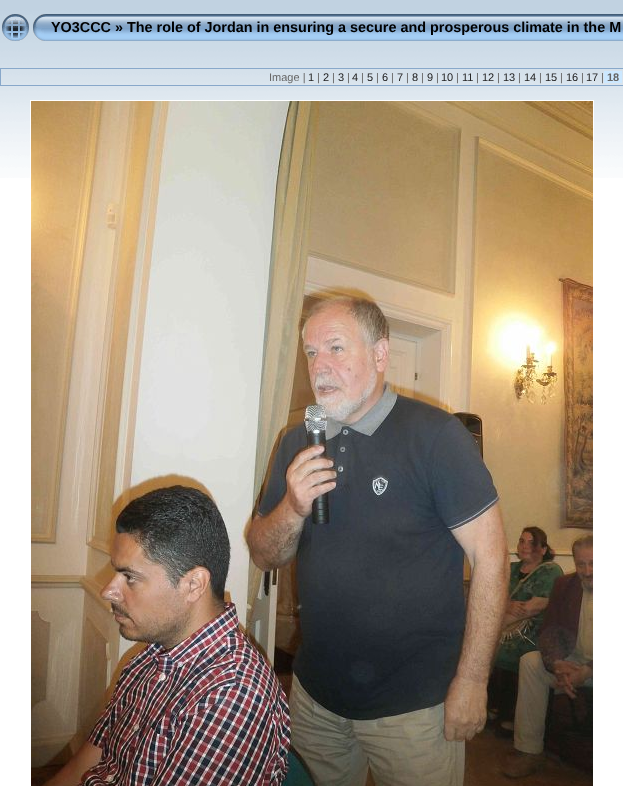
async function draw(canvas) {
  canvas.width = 623
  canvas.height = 786
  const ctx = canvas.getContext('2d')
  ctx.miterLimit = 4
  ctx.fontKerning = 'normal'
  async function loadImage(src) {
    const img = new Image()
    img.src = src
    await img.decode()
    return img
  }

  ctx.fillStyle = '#fff'
  ctx.fillRect(0, 0, 623, 786)
  ctx.drawImage(await loadImage('image0.png'), 0, 0, 623, 178)
  ctx.drawImage(await loadImage('image1.png'), 2, 14, 27, 27)
  ctx.drawImage(await loadImage('image2.png'), 33, 14, 18, 27)
  ctx.drawImage(await loadImage('image3.png'), 51, 14, 572, 27)
  ctx.font = 'bold 14.4px Liberation Sans'
  ctx.fillStyle = '#000'
  ctx.fillText('YO3CCC » The role of Jordan in ensuring a secure and prosperous climate in the M', 51, 32)
  ctx.fillStyle = '#88a8ca'
  ctx.fillRect(0, 68, 623, 1)
  ctx.fillRect(0, 85, 623, 1)
  ctx.fillRect(0, 68, 1, 18)
  ctx.font = '11px Liberation Sans'
  ctx.fillStyle = '#666'
  ctx.fillText('Image |', 269, 81)
  ctx.fillStyle = '#222'
  ctx.fillText('1', 308, 81)
  ctx.fillStyle = '#666'
  ctx.fillText('|', 317, 81)
  ctx.fillStyle = '#222'
  ctx.fillText('2', 323, 81)
  ctx.fillStyle = '#666'
  ctx.fillText('|', 332, 81)
  ctx.fillStyle = '#222'
  ctx.fillText('3', 338, 81)
  ctx.fillStyle = '#666'
  ctx.fillText('|', 347, 81)
  ctx.fillStyle = '#222'
  ctx.fillText('4', 352, 81)
  ctx.fillStyle = '#666'
  ctx.fillText('|', 361, 81)
  ctx.fillStyle = '#222'
  ctx.fillText('5', 367, 81)
  ctx.fillStyle = '#666'
  ctx.fillText('|', 376, 81)
  ctx.fillStyle = '#222'
  ctx.fillText('6', 382, 81)
  ctx.fillStyle = '#666'
  ctx.fillText('|', 391, 81)
  ctx.fillStyle = '#222'
  ctx.fillText('7', 397, 81)
  ctx.fillStyle = '#666'
  ctx.fillText('|', 406, 81)
  ctx.fillStyle = '#222'
  ctx.fillText('8', 412, 81)
  ctx.fillStyle = '#666'
  ctx.fillText('|', 421, 81)
  ctx.fillStyle = '#222'
  ctx.fillText('9', 427, 81)
  ctx.fillStyle = '#666'
  ctx.fillText('|', 436, 81)
  ctx.fillStyle = '#222'
  ctx.fillText('10', 441, 81)
  ctx.fillStyle = '#666'
  ctx.fillText('|', 456, 81)
  ctx.fillStyle = '#222'
  ctx.fillText('11', 462, 81)
  ctx.fillStyle = '#666'
  ctx.fillText('|', 476, 81)
  ctx.fillStyle = '#222'
  ctx.fillText('12', 482, 81)
  ctx.fillStyle = '#666'
  ctx.fillText('|', 497, 81)
  ctx.fillStyle = '#222'
  ctx.fillText('13', 503, 81)
  ctx.fillStyle = '#666'
  ctx.fillText('|', 518, 81)
  ctx.fillStyle = '#222'
  ctx.fillText('14', 524, 81)
  ctx.fillStyle = '#666'
  ctx.fillText('|', 539, 81)
  ctx.fillStyle = '#222'
  ctx.fillText('15', 545, 81)
  ctx.fillStyle = '#666'
  ctx.fillText('|', 560, 81)
  ctx.fillStyle = '#222'
  ctx.fillText('16', 566, 81)
  ctx.fillStyle = '#666'
  ctx.fillText('|', 581, 81)
  ctx.fillStyle = '#222'
  ctx.fillText('17', 586, 81)
  ctx.fillStyle = '#666'
  ctx.fillText('|', 601, 81)
  ctx.fillStyle = '#cce8ff'
  ctx.fillRect(604, 71, 18, 12)
  ctx.font = 'bold 11px Liberation Sans'
  ctx.fillStyle = '#666'
  ctx.fillText('18', 607, 81)
  ctx.strokeStyle = '#fff'
  ctx.strokeRect(30.5, 100.5, 563, 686)
  ctx.drawImage(await loadImage('image4.png'), 31, 101, 562, 685)
}

draw(document.querySelector('canvas'))
